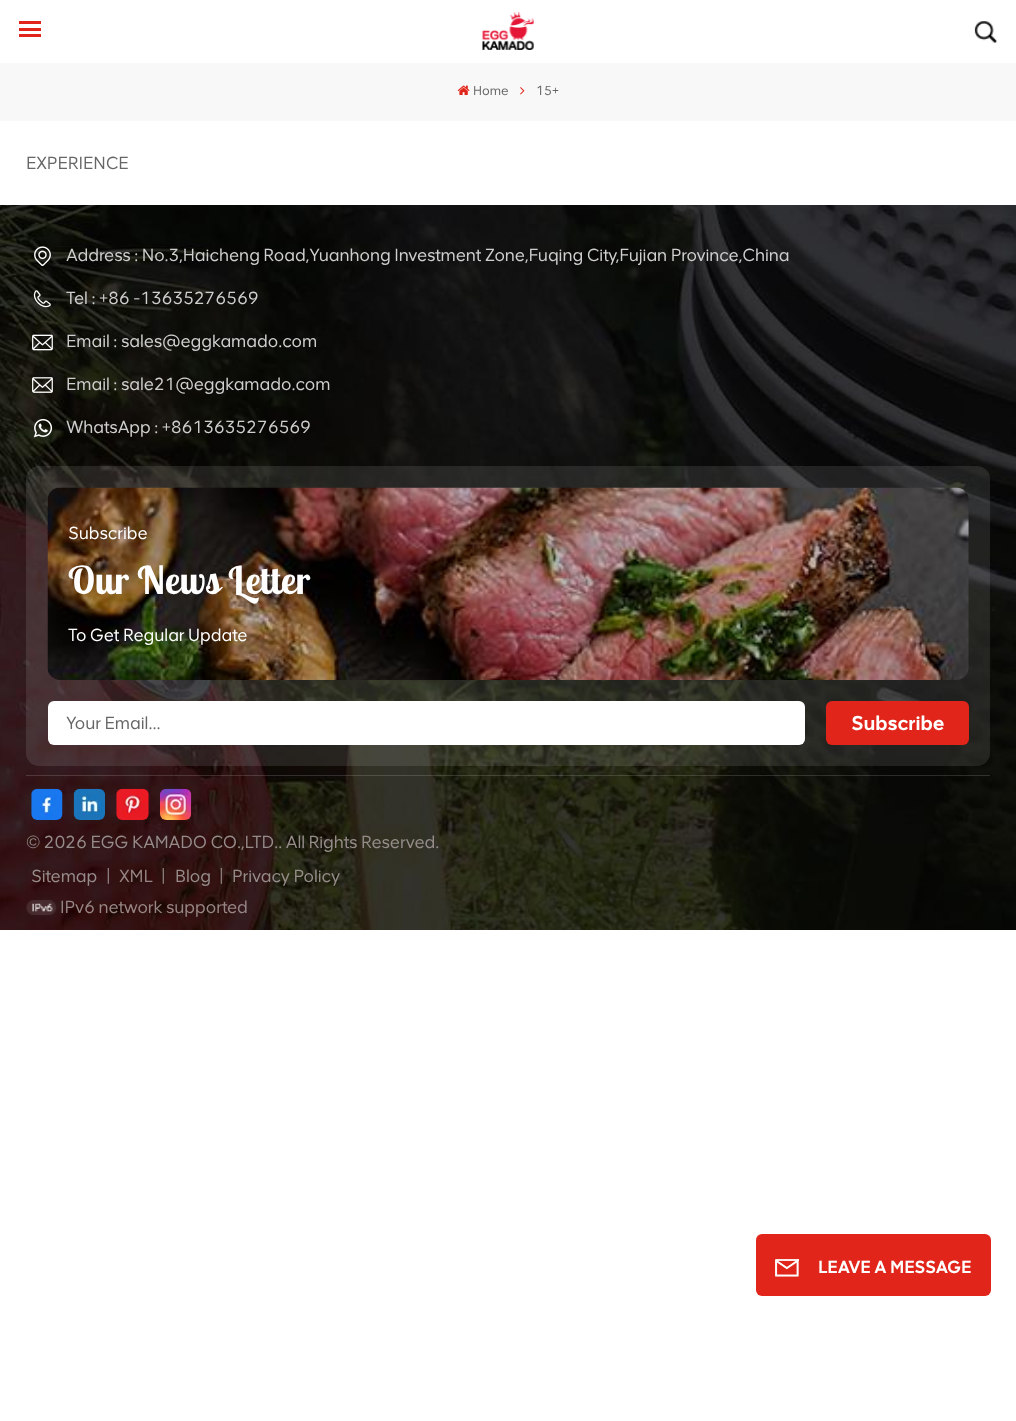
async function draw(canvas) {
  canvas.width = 1016
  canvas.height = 1421
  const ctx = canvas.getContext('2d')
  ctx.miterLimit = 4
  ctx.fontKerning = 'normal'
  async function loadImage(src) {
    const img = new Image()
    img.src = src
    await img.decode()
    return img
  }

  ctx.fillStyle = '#fff'
  ctx.fillRect(0, 0, 1016, 1421)
  ctx.fillStyle = '#e1251a'
  ctx.fillRect(19, 21, 22, 3)
  ctx.fillRect(19, 28, 22, 3)
  ctx.fillRect(19, 34, 22, 3)
  ctx.drawImage(await loadImage('image0.png'), 482, 12, 52, 38)
  ctx.drawImage(await loadImage('image1.png'), 974, 21, 23, 22)
  ctx.fillStyle = '#f8f8f8'
  ctx.fillRect(0, 63, 1016, 58)
  ctx.drawImage(await loadImage('image2.png'), 457, 85, 13, 10)
  ctx.font = '13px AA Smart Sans'
  ctx.fillStyle = '#666'
  ctx.fillText('Home', 473, 95)
  ctx.drawImage(await loadImage('image3.png'), 520, 87, 5, 8)
  ctx.fillText('15+', 536, 95)
  ctx.font = '17.5px AA Smart Sans'
  ctx.fillText('EXPERIENCE', 26, 169)
  ctx.drawImage(await loadImage('image4.png'), 0, 205, 1016, 725)
  ctx.drawImage(await loadImage('image5.png'), 34, 246, 17, 21)
  ctx.fillStyle = '#cfcfcf'
  ctx.fillText('Address : No.3,Haicheng Road,Yuanhong Investment Zone,Fuqing City,Fujian Province,China', 66, 261)
  ctx.drawImage(await loadImage('image6.png'), 33, 290, 18, 18)
  ctx.fillText('Tel : +86 -13635276569', 66, 304)
  ctx.drawImage(await loadImage('image7.png'), 32, 334, 21, 17)
  ctx.fillText('Email : sales@eggkamado.com', 66, 347)
  ctx.drawImage(await loadImage('image8.png'), 32, 377, 21, 16)
  ctx.fillText('Email : sale21@eggkamado.com', 66, 390)
  ctx.drawImage(await loadImage('image9.png'), 33, 418, 20, 20)
  ctx.fillText('WhatsApp : +8613635276569', 66, 433)
  ctx.fillStyle = '#ffffff1a'
  ctx.beginPath()
  ctx.roundRect(26, 466, 964, 300, 13)
  ctx.fill()
  ctx.drawImage(await loadImage('image10.png'), 47, 487, 922, 193)
  ctx.fillStyle = '#fff'
  ctx.fillText('Subscribe', 68, 539)
  ctx.font = 'bold 38.5px Lobster Two'
  ctx.fillText('Our News Letter', 68, 594)
  ctx.font = '17.5px AA Smart Sans'
  ctx.fillText('To Get Regular Update', 68, 641)
  ctx.beginPath()
  ctx.roundRect(48, 701, 757, 44, 6)
  ctx.fill()
  ctx.fillStyle = '#666'
  ctx.fillText('Your Email...', 66, 729)
  ctx.fillStyle = '#e1251a'
  ctx.beginPath()
  ctx.roundRect(826, 701, 143, 44, 6)
  ctx.fill()
  ctx.font = 'bold 20px AA Smart Sans'
  ctx.fillStyle = '#fff'
  ctx.fillText('Subscribe', 851, 730)
  ctx.fillStyle = '#ffffff26'
  ctx.fillRect(26, 775, 964, 1)
  ctx.drawImage(await loadImage('image11.png'), 31, 788, 32, 32)
  ctx.drawImage(await loadImage('image12.png'), 73, 788, 32, 32)
  ctx.drawImage(await loadImage('image13.png'), 116, 788, 33, 32)
  ctx.drawImage(await loadImage('image14.png'), 160, 788, 32, 32)
  ctx.font = '17.5px AA Smart Sans'
  ctx.fillStyle = '#968d8b'
  ctx.fillText('© 2026 EGG KAMADO CO.,LTD.. All Rights Reserved.', 26, 848)
  ctx.fillText('Sitemap', 31, 882)
  ctx.fillText('|', 106, 882)
  ctx.fillStyle = '#968685'
  ctx.fillText('XML', 119, 882)
  ctx.fillStyle = '#968d8b'
  ctx.fillText('|', 161, 882)
  ctx.fillText('Blog', 175, 882)
  ctx.fillText('|', 219, 882)
  ctx.fillText('Privacy Policy', 232, 882)
  ctx.drawImage(await loadImage('image15.png'), 26, 900, 31, 15)
  ctx.fillStyle = '#968685'
  ctx.fillText('IPv6 network supported', 60, 913)
  ctx.fillStyle = '#e1251a'
  ctx.beginPath()
  ctx.roundRect(756, 1234, 235, 62, 6)
  ctx.fill()
  ctx.drawImage(await loadImage('image16.png'), 775, 1259, 24, 18)
  ctx.font = 'bold 17.5px AA Smart Sans'
  ctx.fillStyle = '#fff'
  ctx.fillText('LEAVE A MESSAGE', 818, 1273)
}

draw(document.querySelector('canvas'))
